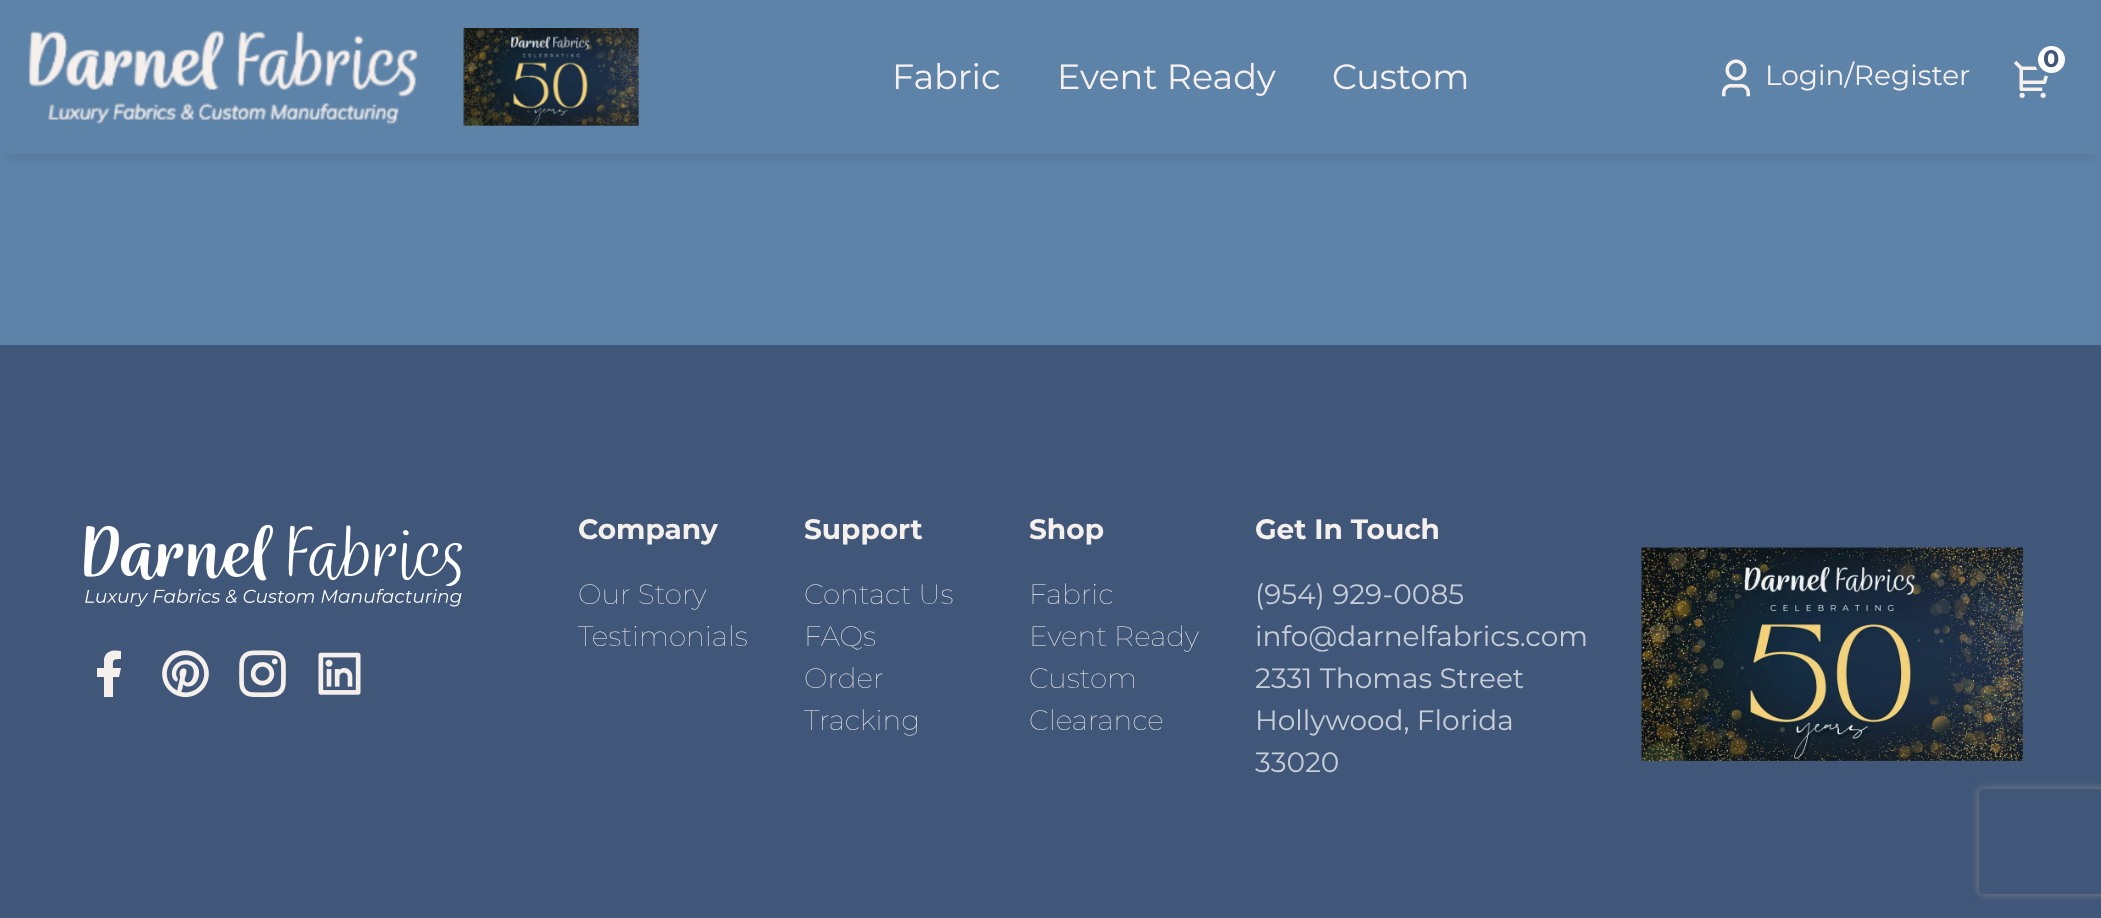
async function draw(canvas) {
  canvas.width = 2101
  canvas.height = 918
  const ctx = canvas.getContext('2d')
  ctx.miterLimit = 4
  ctx.fontKerning = 'normal'
  async function loadImage(src) {
    const img = new Image()
    img.src = src
    await img.decode()
    return img
  }

  ctx.fillStyle = '#405779'
  ctx.fillRect(0, 0, 2101, 918)
  ctx.fillStyle = '#5e83a8'
  ctx.fillRect(0, 154, 2101, 191)
  ctx.fillStyle = '#00000014'
  ctx.filter = 'blur(3.5px)'
  ctx.beginPath()
  ctx.rect(7, 18, 2088, 140)
  ctx.fill()
  ctx.filter = 'none'
  ctx.fillStyle = '#5e83a8'
  ctx.fillRect(0, 0, 2101, 154)
  ctx.drawImage(await loadImage('image0.png'), 28, 30, 390, 95)
  ctx.drawImage(await loadImage('image1.png'), 463, 28, 176, 98)
  ctx.font = '35px Montserrat'
  ctx.fillStyle = '#f6f0ed'
  ctx.fillText('Fabric', 892, 89)
  ctx.fillText('Event Ready', 1057, 89)
  ctx.fillText('Custom', 1332, 89)
  ctx.drawImage(await loadImage('image2.png'), 2013, 60, 36, 38)
  ctx.fillStyle = '#fff'
  ctx.beginPath()
  ctx.arc(2051.5, 59.5, 15.5, 0, 2 * Math.PI)
  ctx.fill()
  ctx.strokeStyle = '#5e83a8'
  ctx.lineWidth = 4
  ctx.stroke()
  ctx.font = 'bold 24px Montserrat'
  ctx.fillStyle = '#405779'
  ctx.fillText('0', 2043, 67)
  ctx.drawImage(await loadImage('image3.png'), 1722, 59, 28, 38)
  ctx.font = '28px Montserrat'
  ctx.fillStyle = '#f6f0ed'
  ctx.fillText('Login/Register', 1765, 85)
  ctx.drawImage(await loadImage('image4.png'), 84, 524, 378, 83)
  ctx.beginPath()
  ctx.moveTo(113, 677)
  ctx.lineTo(119, 677)
  ctx.lineTo(121, 668)
  ctx.lineTo(113, 668)
  ctx.bezierCurveTo(113, 660, 112, 659, 121, 659)
  ctx.lineTo(121, 651)
  ctx.bezierCurveTo(114, 650, 106, 650, 104, 659)
  ctx.lineTo(104, 668)
  ctx.lineTo(97, 668)
  ctx.lineTo(97, 677)
  ctx.lineTo(104, 677)
  ctx.lineTo(104, 697)
  ctx.lineTo(113, 697)
  ctx.closePath()
  ctx.fill()
  ctx.drawImage(await loadImage('image5.png'), 162, 650, 47, 48)
  ctx.drawImage(await loadImage('image6.png'), 239, 650, 47, 48)
  ctx.drawImage(await loadImage('image7.png'), 318, 652, 43, 43)
  ctx.font = 'bold 28px Montserrat'
  ctx.fillText('Company', 578, 539)
  ctx.font = '100 28px Montserrat'
  ctx.fillText('Our Story', 578, 604)
  ctx.fillText('Testimonials', 578, 646)
  ctx.font = 'bold 28px Montserrat'
  ctx.fillText('Support', 804, 539)
  ctx.font = '100 28px Montserrat'
  ctx.fillText('Contact Us', 804, 604)
  ctx.fillText('FAQs', 804, 646)
  ctx.fillText('Order', 804, 688)
  ctx.fillText('Tracking', 804, 730)
  ctx.font = 'bold 28px Montserrat'
  ctx.fillText('Shop', 1029, 539)
  ctx.font = '100 28px Montserrat'
  ctx.fillText('Fabric', 1029, 604)
  ctx.fillText('Event Ready', 1029, 646)
  ctx.fillText('Custom', 1029, 688)
  ctx.fillText('Clearance', 1029, 730)
  ctx.font = 'bold 28px Montserrat'
  ctx.fillText('Get In Touch', 1255, 539)
  ctx.font = '28px Montserrat'
  ctx.fillStyle = '#c6cdd7'
  ctx.fillText('(954) 929-0085', 1255, 604)
  ctx.fillText('info@darnelfabrics.com', 1255, 646)
  ctx.fillText('2331 Thomas Street', 1255, 688)
  ctx.fillText('Hollywood, Florida', 1255, 730)
  ctx.fillText('33020', 1255, 772)
  ctx.drawImage(await loadImage('image8.png'), 1641, 547, 382, 214)
  ctx.save()
  ctx.beginPath()
  ctx.moveTo(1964, 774)
  ctx.lineTo(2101, 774)
  ctx.lineTo(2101, 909)
  ctx.lineTo(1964, 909)
  ctx.closePath()
  ctx.moveTo(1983, 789)
  ctx.lineTo(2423, 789)
  ctx.bezierCurveTo(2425, 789, 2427, 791, 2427, 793)
  ctx.lineTo(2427, 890)
  ctx.bezierCurveTo(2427, 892, 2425, 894, 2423, 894)
  ctx.lineTo(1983, 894)
  ctx.bezierCurveTo(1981, 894, 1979, 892, 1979, 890)
  ctx.lineTo(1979, 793)
  ctx.bezierCurveTo(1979, 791, 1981, 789, 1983, 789)
  ctx.closePath()
  ctx.clip('evenodd')
  ctx.fillStyle = '#808080'
  ctx.filter = 'blur(4.5px)'
  ctx.beginPath()
  ctx.roundRect(1979, 789, 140, 105, 4)
  ctx.fill()
  ctx.filter = 'none'
  ctx.restore()
}

draw(document.querySelector('canvas'))
